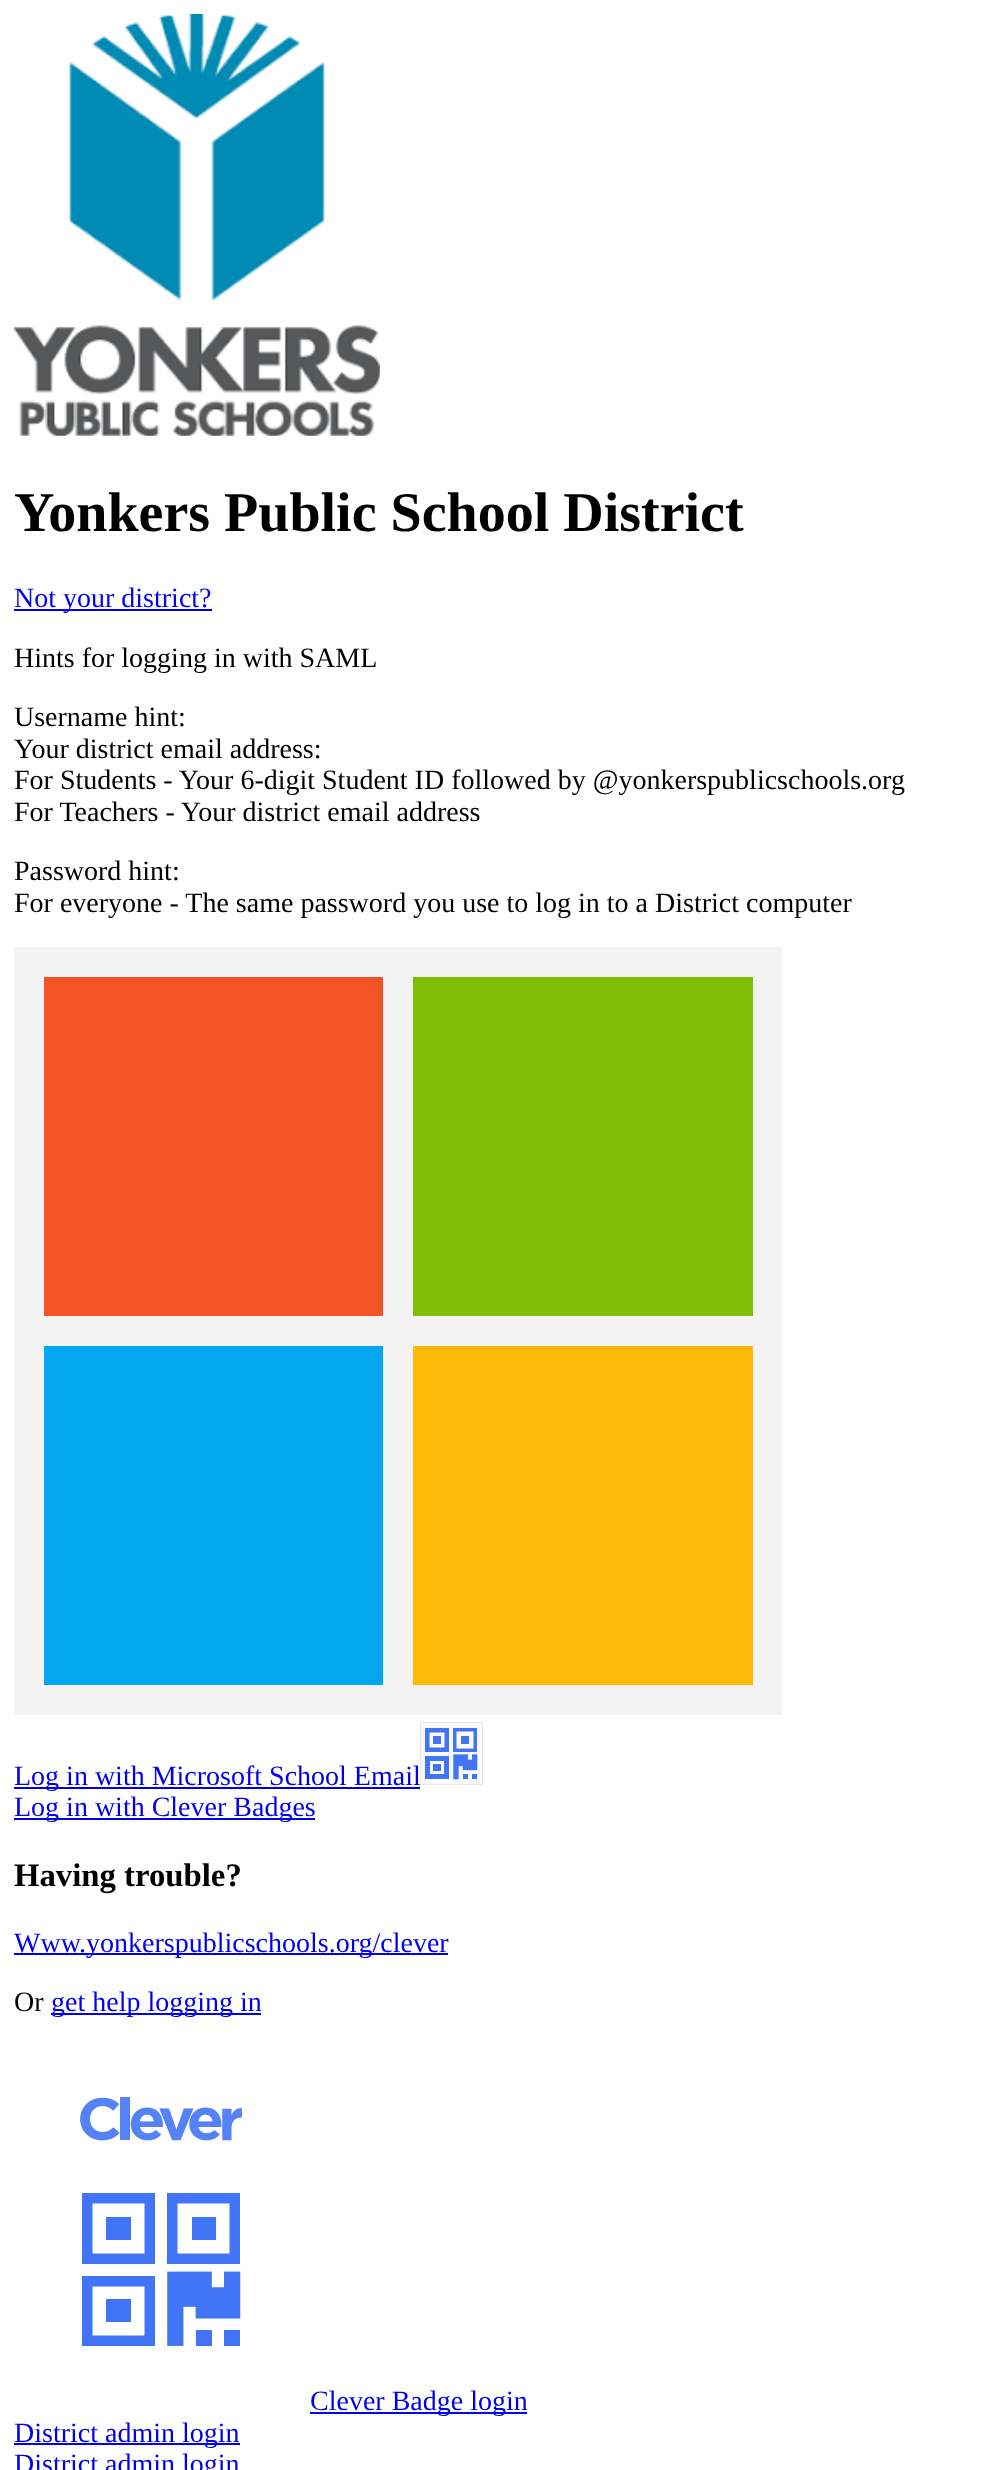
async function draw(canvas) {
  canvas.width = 992
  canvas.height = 2470
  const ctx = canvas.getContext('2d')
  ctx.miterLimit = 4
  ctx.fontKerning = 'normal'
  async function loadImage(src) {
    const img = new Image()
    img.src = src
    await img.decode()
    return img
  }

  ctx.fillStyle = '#fff'
  ctx.fillRect(0, 0, 992, 2470)
  ctx.drawImage(await loadImage('image0.png'), 14, 14, 366, 422)
  ctx.font = 'bold 56px Liberation Serif'
  ctx.fillStyle = '#000'
  ctx.fillText('Yonkers Public School District', 14, 531)
  ctx.fillStyle = '#00e'
  ctx.fillRect(14, 609, 198, 2)
  ctx.font = '28px Liberation Serif'
  ctx.fillText('Not your district?', 14, 607)
  ctx.fillStyle = '#000'
  ctx.fillText('Hints for logging in with SAML', 14, 667)
  ctx.fillText('Username hint:', 14, 726)
  ctx.fillText('Your district email address:', 14, 758)
  ctx.fillText('For Students - Your 6-digit Student ID followed by @yonkerspublicschools.org', 14, 789)
  ctx.fillText('For Teachers - Your district email address', 14, 821)
  ctx.fillText('Password hint:', 14, 880)
  ctx.fillText('For everyone - The same password you use to log in to a District computer', 14, 912)
  ctx.fillStyle = '#00e'
  ctx.fillRect(14, 1787, 406, 2)
  ctx.fillText('Log in with Microsoft School Email', 14, 1785)
  ctx.fillStyle = '#f3f3f3'
  ctx.fillRect(14, 947, 768, 768)
  ctx.fillStyle = '#f35325'
  ctx.fillRect(44, 977, 339, 339)
  ctx.fillStyle = '#81bc06'
  ctx.fillRect(413, 977, 340, 339)
  ctx.fillStyle = '#05a6f0'
  ctx.fillRect(44, 1346, 339, 339)
  ctx.fillStyle = '#ffba08'
  ctx.fillRect(413, 1346, 340, 339)
  ctx.drawImage(await loadImage('image1.png'), 420, 1722, 63, 63)
  ctx.fillStyle = '#00e'
  ctx.fillRect(14, 1818, 301, 2)
  ctx.fillText('Log in with Clever Badges', 14, 1816)
  ctx.font = 'bold 32.75px Liberation Serif'
  ctx.fillStyle = '#000'
  ctx.fillText('Having trouble?', 14, 1886)
  ctx.fillStyle = '#00e'
  ctx.fillRect(14, 1953, 434, 2)
  ctx.font = '28px Liberation Serif'
  ctx.fillText('Www.yonkerspublicschools.org/clever', 14, 1952)
  ctx.fillStyle = '#000'
  ctx.fillText('Or', 14, 2011)
  ctx.fillStyle = '#00e'
  ctx.fillRect(51, 2013, 210, 2)
  ctx.fillText('get help logging in', 51, 2011)
  ctx.drawImage(await loadImage('image2.png'), 80, 2097, 162, 249)
  ctx.fillRect(310, 2412, 217, 2)
  ctx.fillText('Clever Badge login', 310, 2410)
  ctx.fillRect(14, 2443, 226, 2)
  ctx.fillText('District admin login', 14, 2442)
  ctx.fillText('District admin login', 14, 2473)
}

draw(document.querySelector('canvas'))
